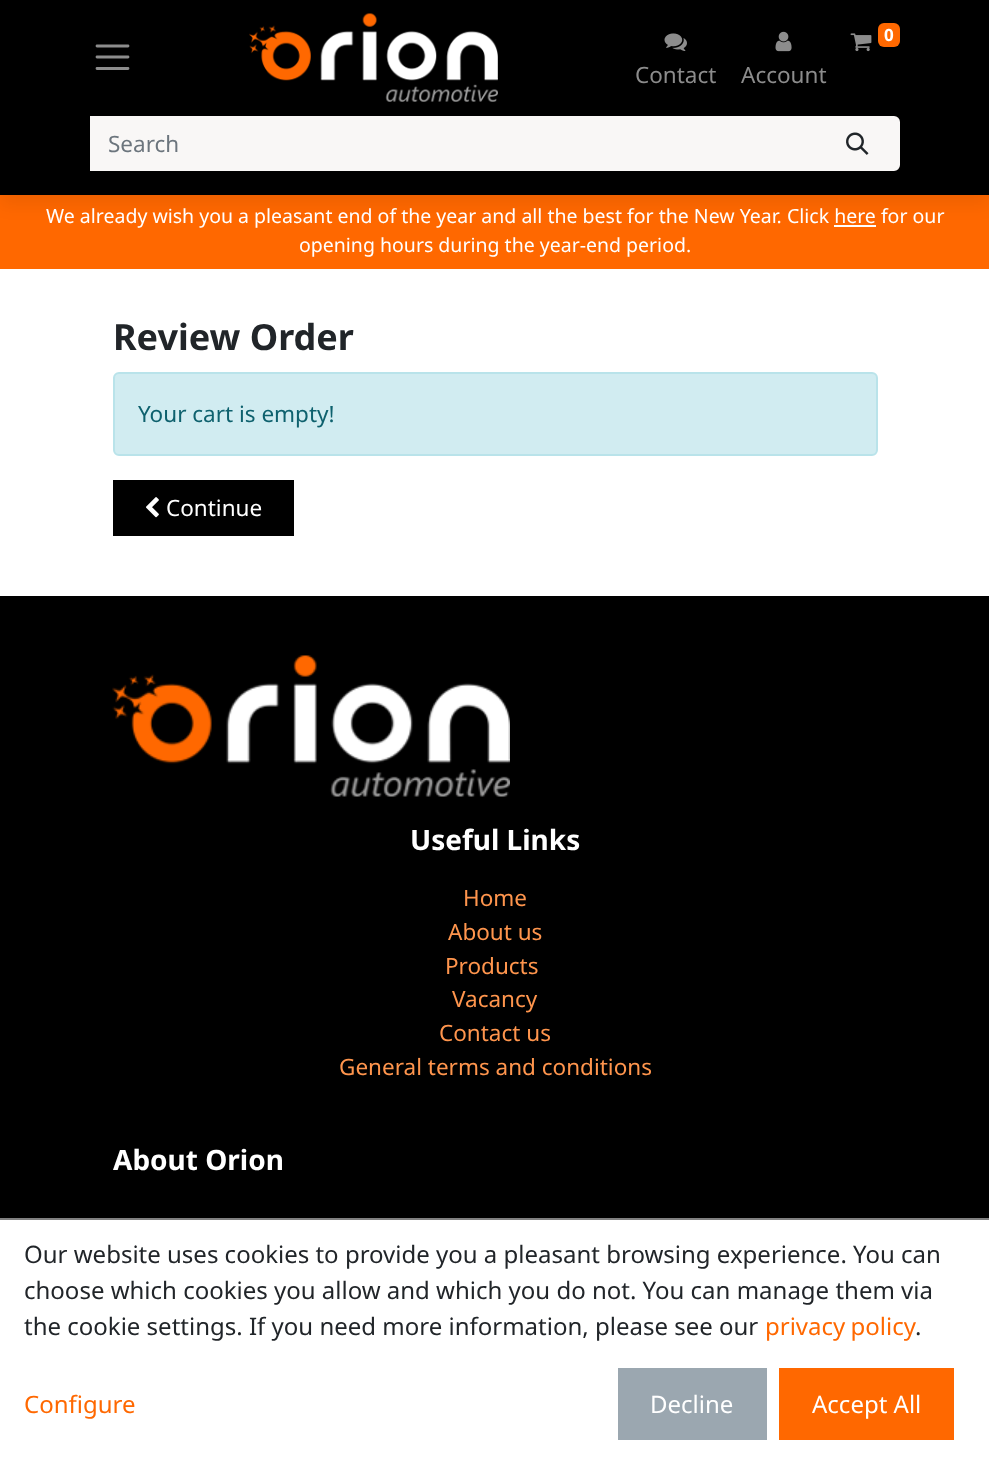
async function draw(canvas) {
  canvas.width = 989
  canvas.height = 1464
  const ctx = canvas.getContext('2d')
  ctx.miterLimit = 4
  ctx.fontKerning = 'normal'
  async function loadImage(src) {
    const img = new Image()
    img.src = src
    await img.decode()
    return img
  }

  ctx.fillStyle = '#fff'
  ctx.fillRect(0, 0, 989, 1464)
  ctx.fillStyle = '#ff6800'
  ctx.fillRect(0, 195, 989, 74)
  ctx.fillStyle = '#fff'
  ctx.fillRect(834, 225, 42, 2)
  ctx.fillStyle = '#00000012'
  ctx.filter = 'blur(9px)'
  ctx.beginPath()
  ctx.rect(0, 9, 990, 195)
  ctx.fill()
  ctx.filter = 'none'
  ctx.fillStyle = '#000'
  ctx.fillRect(0, 0, 989, 195)
  ctx.beginPath()
  ctx.moveTo(97, 46)
  ctx.lineTo(128, 46)
  ctx.moveTo(97, 57)
  ctx.lineTo(128, 57)
  ctx.moveTo(97, 68.5)
  ctx.lineTo(128, 68.5)
  ctx.strokeStyle = '#8c8c8c'
  ctx.lineWidth = 2.8
  ctx.lineCap = 'round'
  ctx.stroke()
  ctx.drawImage(await loadImage('image0.png'), 249, 13, 249, 89)
  ctx.drawImage(await loadImage('image1.png'), 850, 33, 22, 19)
  ctx.fillStyle = '#ff6800'
  ctx.beginPath()
  ctx.roundRect(878, 23, 22, 24, 6)
  ctx.fill()
  ctx.font = 'bold 17px Noto Sans'
  ctx.fillStyle = '#fff'
  ctx.fillText('0', 884, 41)
  ctx.drawImage(await loadImage('image2.png'), 664, 33, 23, 18)
  ctx.font = '22.5px Noto Sans'
  ctx.fillStyle = '#8c8c8c'
  ctx.fillText('Contact', 635, 83)
  ctx.drawImage(await loadImage('image3.png'), 775, 31, 17, 21)
  ctx.fillText('Account', 741, 83)
  ctx.fillStyle = '#f9f7f6'
  ctx.fillRect(90, 116, 725, 55)
  ctx.fillStyle = '#6c757d'
  ctx.fillText('Search', 108, 152)
  ctx.fillStyle = '#f9f7f6'
  ctx.beginPath()
  ctx.roundRect(816, 117, 83, 53, [0, 5, 5, 0])
  ctx.fill()
  ctx.strokeStyle = '#f9f7f6'
  ctx.lineWidth = 2
  ctx.stroke()
  ctx.drawImage(await loadImage('image4.png'), 846, 132, 23, 23)
  ctx.font = '19.5px Noto Sans'
  ctx.fillStyle = '#fff'
  ctx.fillText('We already wish you a pleasant end of the year and all the best for the New Year. Click here for our', 46, 223)
  ctx.fillText('opening hours during the year-end period.', 299, 252)
  ctx.font = 'bold 36px Noto Sans'
  ctx.fillStyle = '#212529'
  ctx.fillText('Review Order', 113, 350)
  ctx.fillStyle = '#d1ecf1'
  ctx.beginPath()
  ctx.roundRect(114, 373, 763, 82, 5)
  ctx.fill()
  ctx.strokeStyle = '#b9e3ea'
  ctx.stroke()
  ctx.font = '22.5px Noto Sans'
  ctx.fillStyle = '#0e616e'
  ctx.fillText('Your cart is empty!', 138, 422)
  ctx.fillStyle = '#000'
  ctx.fillRect(113, 480, 181, 56)
  ctx.drawImage(await loadImage('image5.png'), 146, 497, 13, 21)
  ctx.fillStyle = '#fff'
  ctx.fillText('Continue', 166, 516)
  ctx.fillStyle = '#000'
  ctx.fillRect(0, 596, 989, 622)
  ctx.drawImage(await loadImage('image6.png'), 112, 655, 398, 142)
  ctx.font = 'bold 28px Noto Sans'
  ctx.fillStyle = '#fff'
  ctx.fillText('Useful Links', 410, 850)
  ctx.font = '22.5px Noto Sans'
  ctx.fillStyle = '#ff954d'
  ctx.fillText('Home', 463, 906)
  ctx.fillText('About us', 448, 940)
  ctx.fillText('Products', 445, 974)
  ctx.fillText('Vacancy', 452, 1007)
  ctx.fillText('Contact us', 439, 1041)
  ctx.fillText('General terms and conditions', 339, 1075)
  ctx.font = 'bold 28px Noto Sans'
  ctx.fillStyle = '#fff'
  ctx.fillText('About Orion', 113, 1170)
  ctx.fillStyle = '#808080'
  ctx.fillRect(0, 1218, 989, 2)
  ctx.font = '24px Noto Sans'
  ctx.fillStyle = '#212529'
  ctx.fillText('Our website uses cookies to provide you a pleasant browsing experience. You can', 24, 1263)
  ctx.fillText('choose which cookies you allow and which you do not. You can manage them via', 24, 1299)
  ctx.fillText('the cookie settings. If you need more information, please see our', 24, 1335)
  ctx.wordSpacing = '-1px'
  ctx.fillStyle = '#ff6800'
  ctx.fillText('privacy policy', 765, 1335)
  ctx.wordSpacing = '0px'
  ctx.fillStyle = '#212529'
  ctx.fillText('.', 915, 1335)
  ctx.fillStyle = '#ff6800'
  ctx.fillText('Configure', 24, 1413)
  ctx.fillStyle = '#9ba7b0'
  ctx.fillRect(618, 1368, 149, 72)
  ctx.fillStyle = '#fff'
  ctx.fillText('Decline', 650, 1413)
  ctx.fillStyle = '#ff6800'
  ctx.fillRect(779, 1368, 175, 72)
  ctx.fillStyle = '#fff'
  ctx.fillText('Accept All', 812, 1413)
}

draw(document.querySelector('canvas'))
